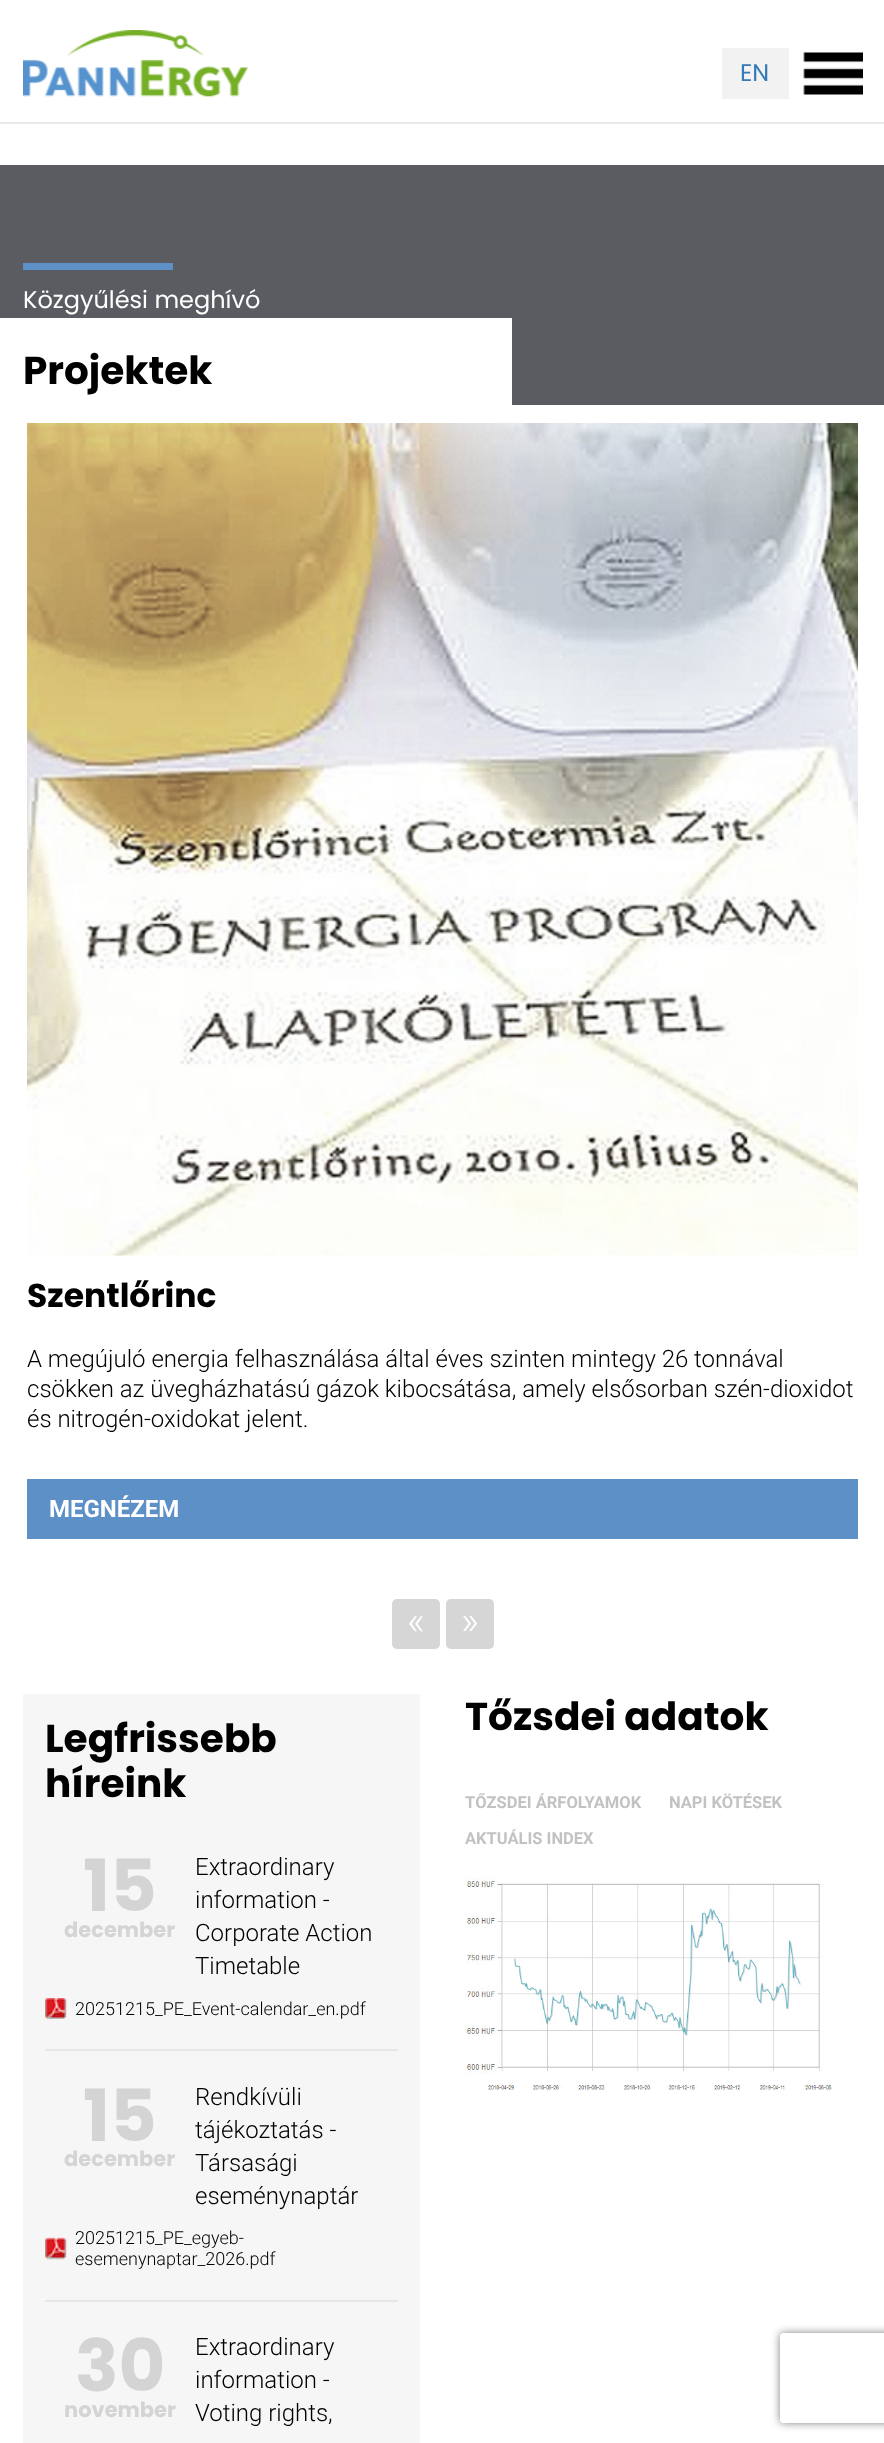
async function draw(canvas) {
  canvas.width = 884
  canvas.height = 2443
  const ctx = canvas.getContext('2d')
  ctx.miterLimit = 4
  ctx.fontKerning = 'normal'
  async function loadImage(src) {
    const img = new Image()
    img.src = src
    await img.decode()
    return img
  }

  ctx.fillStyle = '#fff'
  ctx.fillRect(0, 0, 884, 2443)
  ctx.fillStyle = '#e9e9e9'
  ctx.fillRect(0, 122, 884, 2)
  ctx.drawImage(await loadImage('image0.png'), 23, 30, 225, 67)
  ctx.fillStyle = '#f2f2f2'
  ctx.fillRect(722, 48, 67, 51)
  ctx.font = '24px Poppins'
  ctx.fillStyle = '#337ab7'
  ctx.fillText('EN', 740, 81)
  ctx.drawImage(await loadImage('image1.png'), 803, 52, 60, 43)
  ctx.fillStyle = '#5a5c61'
  ctx.fillRect(0, 165, 884, 240)
  ctx.fillStyle = '#5c90c6'
  ctx.fillRect(23, 263, 150, 7)
  ctx.fillStyle = '#fff'
  ctx.fillText('Közgyűlési meghívó', 23, 308)
  ctx.fillRect(0, 318, 512, 87)
  ctx.font = 'bold 39px Poppins'
  ctx.fillStyle = '#000'
  ctx.fillText('Projektek', 23, 384)
  ctx.drawImage(await loadImage('image2.png'), 27, 423, 831, 833)
  ctx.font = 'bold 33px Poppins'
  ctx.fillText('Szentlőrinc', 27, 1307)
  ctx.font = '300 24px Roboto'
  ctx.fillText('A megújuló energia felhasználása által éves szinten mintegy 26 tonnával', 27, 1367)
  ctx.fillText('csökken az üvegházhatású gázok kibocsátása, amely elsősorban szén-dioxidot', 27, 1397)
  ctx.fillText('és nitrogén-oxidokat jelent.', 27, 1427)
  ctx.fillStyle = '#5c90c6'
  ctx.fillRect(27, 1479, 831, 60)
  ctx.font = 'bold 24px Roboto'
  ctx.fillStyle = '#fff'
  ctx.fillText('MEGNÉZEM', 49, 1517)
  ctx.fillStyle = '#d6d6d6'
  ctx.beginPath()
  ctx.roundRect(392, 1599, 48, 50, 5)
  ctx.fill()
  ctx.font = '300 39px Roboto'
  ctx.fillStyle = '#fff'
  ctx.fillText('«', 407, 1634)
  ctx.fillStyle = '#d6d6d6'
  ctx.beginPath()
  ctx.roundRect(446, 1599, 48, 50, 5)
  ctx.fill()
  ctx.fillStyle = '#fff'
  ctx.fillText('»', 461, 1634)
  ctx.fillStyle = '#f6f6f6'
  ctx.fillRect(23, 1694, 397, 749)
  ctx.font = 'bold 39px Poppins'
  ctx.fillStyle = '#000'
  ctx.fillText('Legfrissebb', 45, 1752)
  ctx.fillText('híreink', 45, 1797)
  ctx.fillStyle = '#e6e6e6'
  ctx.fillRect(45, 2049, 353, 2)
  ctx.font = 'bold 72px Poppins'
  ctx.fillStyle = '#d4d4d4'
  ctx.fillText('15', 83, 1911)
  ctx.font = 'bold 21px Poppins'
  ctx.fillText('december', 64, 1937)
  ctx.font = '300 24px Roboto'
  ctx.fillStyle = '#000'
  ctx.fillText('Extraordinary', 195, 1875)
  ctx.fillText('information -', 195, 1908)
  ctx.fillText('Corporate Action', 195, 1941)
  ctx.fillText('Timetable', 195, 1974)
  ctx.drawImage(await loadImage('image3.png'), 45, 1998, 22, 21)
  ctx.font = '300 18px Roboto'
  ctx.fillText('20251215_PE_Event-calendar_en.pdf', 75, 2015)
  ctx.fillStyle = '#e6e6e6'
  ctx.fillRect(45, 2300, 353, 2)
  ctx.font = 'bold 72px Poppins'
  ctx.fillStyle = '#d4d4d4'
  ctx.fillText('15', 83, 2141)
  ctx.font = 'bold 21px Poppins'
  ctx.fillText('december', 64, 2166)
  ctx.font = '300 24px Roboto'
  ctx.fillStyle = '#000'
  ctx.fillText('Rendkívüli', 195, 2105)
  ctx.fillText('tájékoztatás -', 195, 2138)
  ctx.fillText('Társasági', 195, 2171)
  ctx.fillText('eseménynaptár', 195, 2204)
  ctx.drawImage(await loadImage('image4.png'), 45, 2237, 22, 23)
  ctx.font = '300 18px Roboto'
  ctx.fillText('20251215_PE_egyeb-', 75, 2244)
  ctx.fillText('esemenynaptar_2026.pdf', 75, 2265)
  ctx.font = 'bold 72px Poppins'
  ctx.fillStyle = '#d4d4d4'
  ctx.fillText('30', 75, 2391)
  ctx.font = 'bold 21px Poppins'
  ctx.fillText('november', 64, 2417)
  ctx.font = '300 24px Roboto'
  ctx.fillStyle = '#000'
  ctx.fillText('Extraordinary', 195, 2355)
  ctx.fillText('information -', 195, 2388)
  ctx.fillText('Voting rights,', 195, 2421)
  ctx.font = 'bold 39px Poppins'
  ctx.fillText('Tőzsdei adatok', 465, 1730)
  ctx.font = 'bold 16.5px Roboto'
  ctx.fillStyle = '#c2c2c2'
  ctx.fillText('TŐZSDEI ÁRFOLYAMOK', 465, 1808)
  ctx.fillText('NAPI KÖTÉSEK', 669, 1808)
  ctx.fillText('AKTUÁLIS INDEX', 465, 1844)
  ctx.drawImage(await loadImage('image5.png'), 465, 1878, 367, 212)
  ctx.save()
  ctx.beginPath()
  ctx.moveTo(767, 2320)
  ctx.lineTo(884, 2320)
  ctx.lineTo(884, 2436)
  ctx.lineTo(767, 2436)
  ctx.closePath()
  ctx.moveTo(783, 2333)
  ctx.lineTo(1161, 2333)
  ctx.bezierCurveTo(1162.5, 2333, 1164, 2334.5, 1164, 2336)
  ctx.lineTo(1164, 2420)
  ctx.bezierCurveTo(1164, 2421.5, 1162.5, 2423, 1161, 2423)
  ctx.lineTo(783, 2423)
  ctx.bezierCurveTo(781.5, 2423, 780, 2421.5, 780, 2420)
  ctx.lineTo(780, 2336)
  ctx.bezierCurveTo(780, 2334.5, 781.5, 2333, 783, 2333)
  ctx.closePath()
  ctx.clip('evenodd')
  ctx.fillStyle = '#808080'
  ctx.filter = 'blur(4px)'
  ctx.beginPath()
  ctx.roundRect(780, 2333, 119, 90, 3)
  ctx.fill()
  ctx.filter = 'none'
  ctx.restore()
}

draw(document.querySelector('canvas'))
